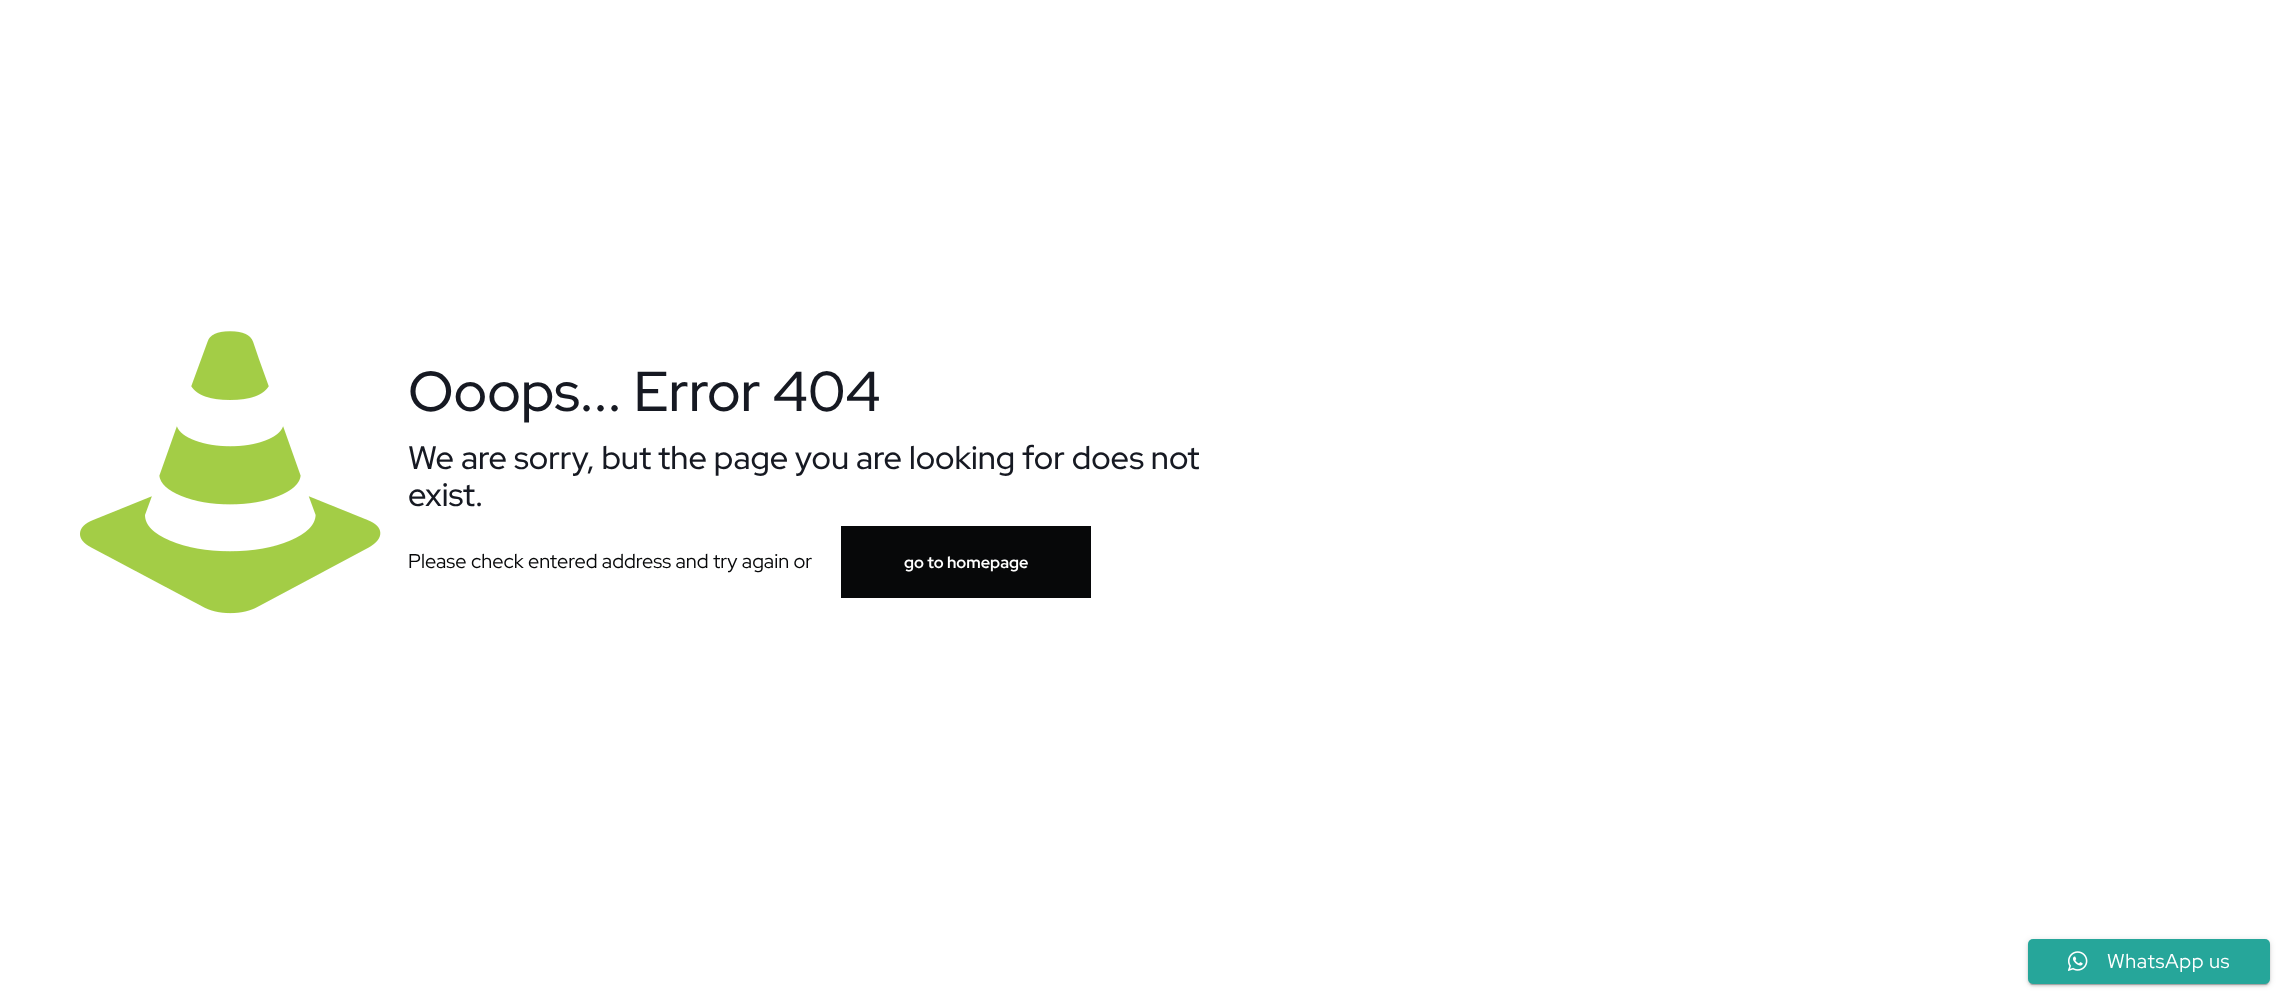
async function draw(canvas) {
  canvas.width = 2288
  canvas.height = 1002
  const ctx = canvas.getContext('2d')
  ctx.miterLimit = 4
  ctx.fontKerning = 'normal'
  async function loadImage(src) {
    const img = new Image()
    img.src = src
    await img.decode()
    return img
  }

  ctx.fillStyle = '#fff'
  ctx.fillRect(0, 0, 2288, 1002)
  ctx.drawImage(await loadImage('image0.png'), 80, 331, 301, 283)
  ctx.font = '500 56.25px Red Hat Display'
  ctx.fillStyle = '#161922'
  ctx.fillText('Ooops... Error 404', 408, 411)
  ctx.font = '500 32.5px Red Hat Display'
  ctx.fillText('We are sorry, but the page you are looking for does not', 408, 469)
  ctx.fillText('exist.', 408, 506)
  ctx.font = '20px Red Hat Display'
  ctx.fillStyle = '#070809'
  ctx.fillText('Please check entered address and try again or', 408, 568)
  ctx.fillRect(841, 526, 250, 72)
  ctx.font = 'bold 16.25px Red Hat Display'
  ctx.fillStyle = '#fff'
  ctx.fillText('go to homepage', 904, 568)
  ctx.fillStyle = '#00000033'
  ctx.filter = 'blur(0.5px)'
  ctx.beginPath()
  ctx.roundRect(2030, 945, 238, 40, 2.5)
  ctx.fill()
  ctx.filter = 'none'
  ctx.fillStyle = '#0000001f'
  ctx.filter = 'blur(3px)'
  ctx.beginPath()
  ctx.roundRect(2028, 940, 242, 45, 5)
  ctx.fill()
  ctx.filter = 'none'
  ctx.fillStyle = '#00000024'
  ctx.filter = 'blur(1px)'
  ctx.beginPath()
  ctx.roundRect(2028, 941, 242, 45, 5)
  ctx.fill()
  ctx.filter = 'none'
  ctx.fillStyle = '#26a69a'
  ctx.beginPath()
  ctx.roundRect(2028, 939, 242, 45, 5)
  ctx.fill()
  ctx.drawImage(await loadImage('image1.png'), 2068, 951, 20, 20)
  ctx.letterSpacing = '0.6px'
  ctx.font = '20px Red Hat Display'
  ctx.fillStyle = '#fff'
  ctx.fillText('WhatsApp us', 2107, 968)
}

draw(document.querySelector('canvas'))
